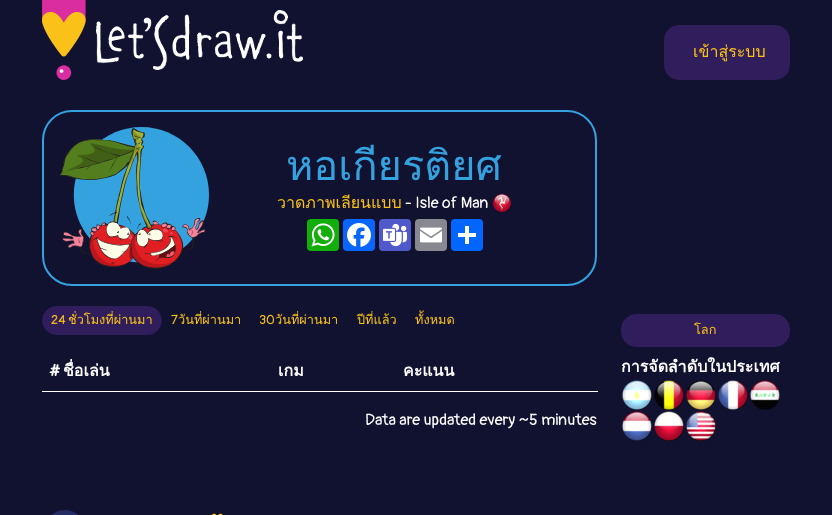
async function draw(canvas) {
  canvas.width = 832
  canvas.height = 515
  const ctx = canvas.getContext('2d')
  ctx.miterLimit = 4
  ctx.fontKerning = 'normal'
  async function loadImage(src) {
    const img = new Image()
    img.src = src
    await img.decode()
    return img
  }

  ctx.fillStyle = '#111130'
  ctx.fillRect(0, 0, 832, 515)
  ctx.drawImage(await loadImage('image0.png'), 42, 0, 44, 80)
  ctx.drawImage(await loadImage('image1.png'), 96, 10, 207, 60)
  ctx.fillStyle = '#2f1d5c'
  ctx.beginPath()
  ctx.roundRect(664, 25, 126, 55, 15)
  ctx.fill()
  ctx.font = '16px Loma'
  ctx.fillStyle = '#fac218'
  ctx.fillText('เข้าสู่ระบบ', 693, 57)
  ctx.beginPath()
  ctx.roundRect(43, 111, 553, 174, 29)
  ctx.strokeStyle = '#35a2e0'
  ctx.lineWidth = 2
  ctx.stroke()
  ctx.drawImage(await loadImage('image2.png'), 59, 127, 150, 142)
  ctx.font = '41.5px Loma'
  ctx.fillStyle = '#35a2e0'
  ctx.fillText('หอเกียรติยศ', 286, 180)
  ctx.font = '16px Loma'
  ctx.fillStyle = '#fac218'
  ctx.fillText('วาดภาพเลียนแบบ', 277, 208)
  ctx.font = '16px Pangolin'
  ctx.fillStyle = '#fff'
  ctx.fillText('- Isle of Man', 405, 208)
  ctx.drawImage(await loadImage('image3.png'), 492, 193, 20, 20)
  ctx.fillStyle = '#12af0a'
  ctx.beginPath()
  ctx.roundRect(307, 219, 32, 32, 4)
  ctx.fill()
  ctx.drawImage(await loadImage('image4.png'), 311, 223, 24, 24)
  ctx.fillStyle = '#0866ff'
  ctx.beginPath()
  ctx.roundRect(343, 219, 32, 32, 4)
  ctx.fill()
  ctx.drawImage(await loadImage('image5.png'), 347, 223, 24, 24)
  ctx.fillStyle = '#5059c9'
  ctx.beginPath()
  ctx.roundRect(379, 219, 32, 32, 4)
  ctx.fill()
  ctx.drawImage(await loadImage('image6.png'), 383, 223, 24, 24)
  ctx.fillStyle = '#888990'
  ctx.beginPath()
  ctx.roundRect(415, 219, 32, 32, 4)
  ctx.fill()
  ctx.drawImage(await loadImage('image7.png'), 420, 227, 22, 16)
  ctx.fillStyle = '#0166ff'
  ctx.beginPath()
  ctx.roundRect(451, 219, 32, 32, 4)
  ctx.fill()
  ctx.fillStyle = '#fff'
  ctx.fillRect(465, 226, 4, 18)
  ctx.fillRect(458, 233, 18, 4)
  ctx.fillStyle = '#2f1d5c'
  ctx.beginPath()
  ctx.roundRect(42.5, 306.5, 119, 28, 14)
  ctx.fill()
  ctx.strokeStyle = '#2f1d5c'
  ctx.lineWidth = 1
  ctx.stroke()
  ctx.font = '12.75px Pangolin'
  ctx.fillStyle = '#fac218'
  ctx.fillText('24', 51, 324)
  ctx.font = '12.75px Loma'
  ctx.fillText('ชั่วโมงที่ผ่านมา', 68, 324)
  ctx.font = '12.75px Pangolin'
  ctx.fillText('7', 171, 324)
  ctx.font = '12.75px Loma'
  ctx.fillText('วันที่ผ่านมา', 178, 324)
  ctx.font = '12.75px Pangolin'
  ctx.fillText('30', 259, 324)
  ctx.font = '12.75px Loma'
  ctx.fillText('วันที่ผ่านมา', 275, 324)
  ctx.fillText('ปีที่แล้ว', 357, 324)
  ctx.fillText('ทั้งหมด', 415, 324)
  ctx.font = 'bold 16px Pangolin'
  ctx.fillStyle = '#fff'
  ctx.fillText('#', 50, 376)
  ctx.font = 'bold 16px Loma'
  ctx.fillText('ชื่อเล่น', 63, 376)
  ctx.fillText('เกม', 278, 376)
  ctx.fillRect(42, 391, 556, 1)
  ctx.fillText('คะแนน', 403, 376)
  ctx.font = '16px Pangolin'
  ctx.fillText('Data are updated every ~5 minutes', 365, 425)
  ctx.fillStyle = '#2f1d5c'
  ctx.beginPath()
  ctx.roundRect(621.5, 314.5, 168, 32, 14.5)
  ctx.fill()
  ctx.stroke()
  ctx.font = '12.75px Loma'
  ctx.fillStyle = '#fac218'
  ctx.fillText('โลก', 694, 334)
  ctx.font = 'bold 16px Loma'
  ctx.fillStyle = '#fff'
  ctx.fillText('การจัดลำดับในประเทศ', 621, 372)
  ctx.drawImage(await loadImage('image8.png'), 622, 380, 30, 30)
  ctx.drawImage(await loadImage('image9.png'), 654, 380, 30, 30)
  ctx.drawImage(await loadImage('image10.png'), 686, 380, 30, 30)
  ctx.drawImage(await loadImage('image11.png'), 718, 380, 30, 30)
  ctx.drawImage(await loadImage('image12.png'), 750, 380, 30, 30)
  ctx.drawImage(await loadImage('image13.png'), 622, 411, 30, 30)
  ctx.drawImage(await loadImage('image14.png'), 654, 411, 30, 30)
  ctx.drawImage(await loadImage('image15.png'), 686, 411, 30, 30)
  ctx.drawImage(await loadImage('image16.png'), 51, 510, 172, 5)
}

draw(document.querySelector('canvas'))
